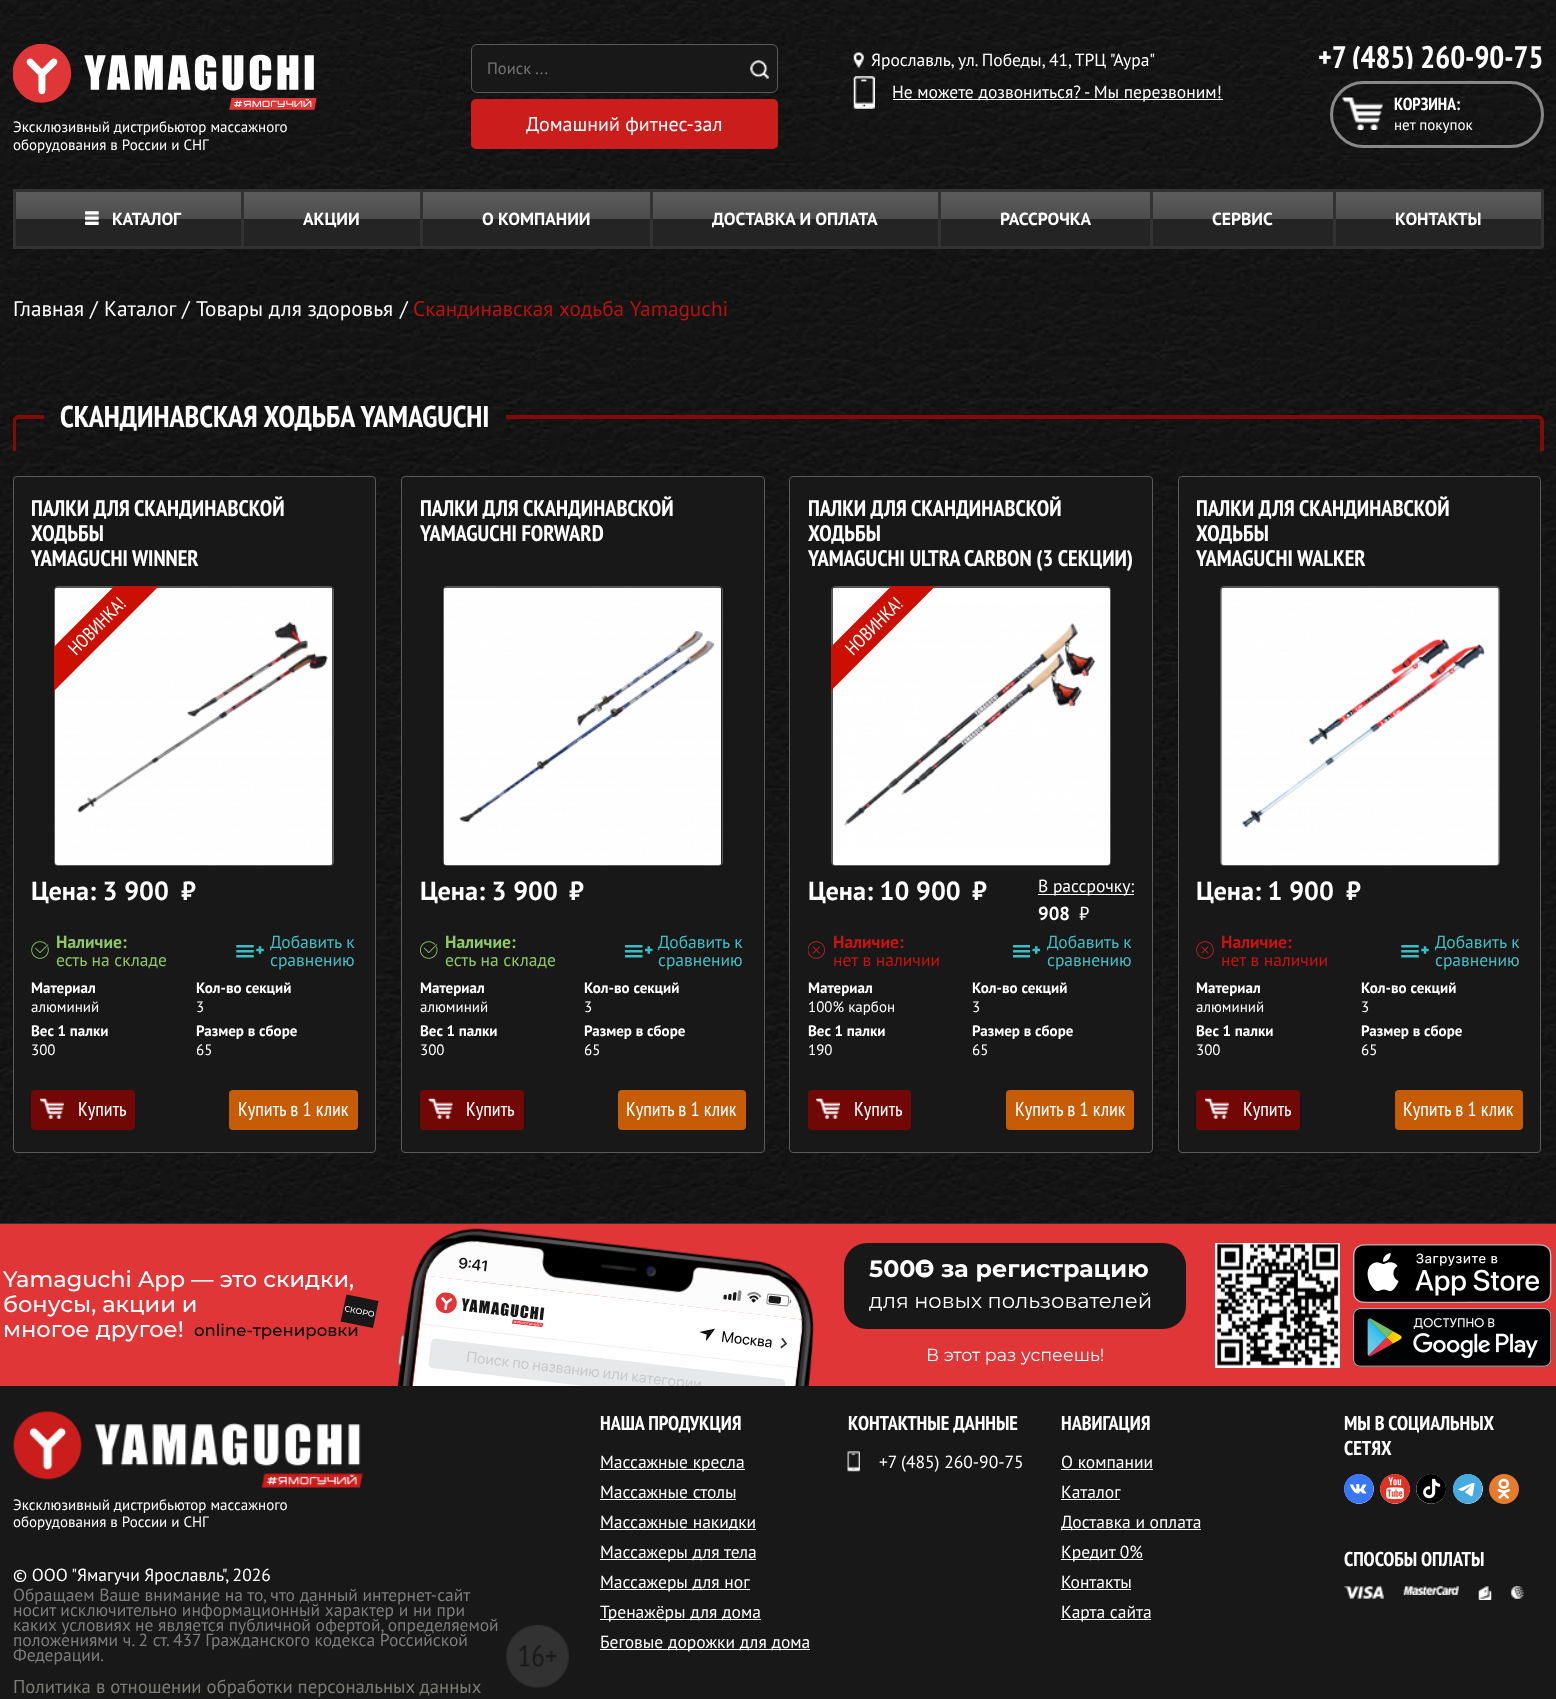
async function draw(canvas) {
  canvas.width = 1556
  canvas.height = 1699
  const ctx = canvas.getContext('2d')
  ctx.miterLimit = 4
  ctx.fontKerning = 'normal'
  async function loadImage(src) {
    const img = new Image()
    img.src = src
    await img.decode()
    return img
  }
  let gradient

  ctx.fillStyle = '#fff'
  ctx.fillRect(0, 0, 1556, 1699)
  ctx.drawImage(await loadImage('image0.png'), 0, 0, 1556, 1223)
  ctx.drawImage(await loadImage('image1.png'), 13, 44, 304, 66)
  ctx.font = '15px PT Sans'
  ctx.fillText('Эксклюзивный дистрибьютор массажного', 13, 132)
  ctx.fillText('оборудования в России и СНГ', 13, 150)
  ctx.fillStyle = '#181818'
  ctx.beginPath()
  ctx.roundRect(471.5, 44.5, 306, 48, 5.5)
  ctx.fill()
  ctx.strokeStyle = '#5a5a5a'
  ctx.stroke()
  ctx.font = '16.5px PT Sans'
  ctx.fillStyle = '#757575'
  ctx.fillText('Поиск ...', 487, 74)
  ctx.drawImage(await loadImage('image2.png'), 750, 60, 19, 19)
  ctx.fillStyle = '#cc1d1d'
  ctx.beginPath()
  ctx.roundRect(472.5, 100.5, 304, 47, 3.5)
  ctx.fill()
  ctx.strokeStyle = '#cc1d1d'
  ctx.lineWidth = 3
  ctx.stroke()
  ctx.font = '20px PT Sans'
  ctx.fillStyle = '#fff'
  ctx.fillText('Домашний фитнес-зал', 526, 131)
  ctx.drawImage(await loadImage('image3.png'), 853, 52, 11, 16)
  ctx.font = '17.5px PT Sans'
  ctx.fillText('Ярославль, ул. Победы, 41, ТРЦ "Аура"', 871, 66)
  ctx.drawImage(await loadImage('image4.png'), 853, 76, 22, 33)
  ctx.fillRect(893, 99, 330, 1)
  ctx.fillText('Не можете дозвониться? - Мы перезвоним!', 892, 98)
  ctx.save()
  ctx.beginPath()
  ctx.rect(1238, 44, 306, 25)
  ctx.clip()
  ctx.font = 'bold 31.25px PT Sans Narrow'
  ctx.fillText('+7 (485) 260-90-75', 1318, 68)
  ctx.restore()
  ctx.beginPath()
  ctx.roundRect(1331.5, 82.5, 211, 64, 32)
  ctx.strokeStyle = '#888'
  ctx.stroke()
  ctx.drawImage(await loadImage('image5.png'), 1342, 97, 41, 33)
  ctx.font = 'bold 17.5px PT Sans Narrow'
  ctx.fillText('КОРЗИНА:', 1394, 110)
  ctx.font = '15px PT Sans'
  ctx.fillText('нет покупок', 1394, 130)
  gradient = ctx.createLinearGradient(778, 189, 778, 249)
  gradient.addColorStop(0, '#5e5e5e')
  gradient.addColorStop(0.5, '#4c4c4c')
  gradient.addColorStop(0.5, '#242424')
  gradient.addColorStop(1, '#242424')
  ctx.fillStyle = gradient
  ctx.beginPath()
  ctx.roundRect(13, 189, 1531, 60, 4)
  ctx.fill()
  ctx.fillStyle = '#323232'
  ctx.fillRect(13, 189, 1320, 3)
  ctx.fillRect(13, 246, 1320, 3)
  ctx.fillRect(13, 189, 3, 60)
  ctx.drawImage(await loadImage('image6.png'), 85, 211, 14, 14)
  ctx.font = 'bold 17.5px PT Sans'
  ctx.fillStyle = '#fff'
  ctx.fillText('КАТАЛОГ', 112, 225)
  ctx.fillStyle = '#323232'
  ctx.fillRect(241, 189, 3, 60)
  ctx.fillStyle = '#fff'
  ctx.fillText('АКЦИИ', 303, 225)
  ctx.fillStyle = '#323232'
  ctx.fillRect(420, 189, 3, 60)
  ctx.fillStyle = '#fff'
  ctx.fillText('О КОМПАНИИ', 482, 225)
  ctx.fillStyle = '#323232'
  ctx.fillRect(650, 189, 3, 60)
  ctx.fillStyle = '#fff'
  ctx.fillText('ДОСТАВКА И ОПЛАТА', 712, 225)
  ctx.fillStyle = '#323232'
  ctx.fillRect(938, 189, 3, 60)
  ctx.fillStyle = '#fff'
  ctx.fillText('РАССРОЧКА', 1000, 225)
  ctx.fillStyle = '#323232'
  ctx.fillRect(1150, 189, 3, 60)
  ctx.fillStyle = '#fff'
  ctx.fillText('СЕРВИС', 1212, 225)
  ctx.beginPath()
  ctx.roundRect(1334.5, 190.5, 208, 57, [0, 2.5, 2.5, 0])
  ctx.strokeStyle = '#323232'
  ctx.stroke()
  ctx.fillText('КОНТАКТЫ', 1395, 225)
  ctx.font = '21.25px PT Sans'
  ctx.fillText('Главная', 13, 316)
  ctx.fillText('/', 90, 316)
  ctx.fillText('Каталог', 104, 316)
  ctx.fillText('/', 182, 316)
  ctx.fillText('Товары для здоровья', 196, 316)
  ctx.fillText('/', 400, 316)
  ctx.fillStyle = '#b5130f'
  ctx.fillText('Скандинавская ходьба Yamaguchi', 413, 316)
  ctx.save()
  ctx.beginPath()
  ctx.rect(13, 375, 1531, 818)
  ctx.clip()
  ctx.fillStyle = '#830a06'
  ctx.beginPath()
  ctx.moveTo(19, 415)
  ctx.lineTo(44, 415)
  ctx.lineTo(44, 451)
  ctx.lineTo(12.5, 451)
  ctx.lineTo(12.5, 421)
  ctx.bezierCurveTo(12.5, 418, 15.5, 415, 19, 415)
  ctx.closePath()
  ctx.moveTo(19, 419)
  ctx.lineTo(44, 419)
  ctx.lineTo(44, 451)
  ctx.lineTo(16, 451)
  ctx.lineTo(16, 421)
  ctx.bezierCurveTo(16, 420, 17.5, 419, 19, 419)
  ctx.closePath()
  ctx.fill('evenodd')
  ctx.restore()
  ctx.font = 'bold 30px PT Sans Narrow'
  ctx.fillStyle = '#fff'
  ctx.fillText('СКАНДИНАВСКАЯ ХОДЬБА YAMAGUCHI', 60, 427)
  ctx.fillStyle = '#830a06'
  ctx.beginPath()
  ctx.moveTo(506, 415)
  ctx.lineTo(1538, 415)
  ctx.bezierCurveTo(1541, 415, 1544, 418, 1544, 421)
  ctx.lineTo(1544, 451)
  ctx.lineTo(506, 451)
  ctx.closePath()
  ctx.moveTo(506, 419)
  ctx.lineTo(1538, 419)
  ctx.bezierCurveTo(1539, 419, 1540, 420, 1540, 421)
  ctx.lineTo(1540, 451)
  ctx.lineTo(506, 451)
  ctx.closePath()
  ctx.fill('evenodd')
  ctx.fillStyle = '#181818'
  ctx.beginPath()
  ctx.roundRect(13.5, 476.5, 362, 676, 3.5)
  ctx.fill()
  ctx.strokeStyle = '#5a5a5a'
  ctx.lineWidth = 1
  ctx.stroke()
  ctx.font = 'bold 22.5px PT Sans Narrow'
  ctx.fillStyle = '#fff'
  ctx.fillText('ПАЛКИ ДЛЯ СКАНДИНАВСКОЙ', 31, 516)
  ctx.fillText('ХОДЬБЫ', 31, 541)
  ctx.fillText('YAMAGUCHI WINNER', 31, 566)
  ctx.beginPath()
  ctx.roundRect(54.5, 586.5, 279, 279, 3.5)
  ctx.stroke()
  ctx.drawImage(await loadImage('image7.png'), 55, 587, 278, 278)
  ctx.save()
  ctx.beginPath()
  ctx.rect(54, 586, 280, 280)
  ctx.clip()
  ctx.fillStyle = '#cb0f01'
  ctx.beginPath()
  ctx.moveTo(311, 434)
  ctx.lineTo(-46, 791)
  ctx.lineTo(-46, 747)
  ctx.lineTo(266, 434)
  ctx.closePath()
  ctx.fill()
  ctx.restore()
  ctx.font = '18.75px PT Sans Narrow'
  ctx.save()
  ctx.translate(76, 656)
  ctx.rotate(-45 * Math.PI / 180)
  ctx.fillText('НОВИНКА!', 0, 0)
  ctx.restore()
  ctx.font = 'bold 26.25px PT Sans'
  ctx.fillText('Цена: 3 900', 31, 900)
  ctx.fillText('⃏', 181, 900)
  ctx.drawImage(await loadImage('image8.png'), 31, 941, 18, 18)
  ctx.font = 'bold 17.5px PT Sans'
  ctx.fillStyle = '#8fc765'
  ctx.fillText('Наличие:', 56, 948)
  ctx.font = '17.5px PT Sans'
  ctx.fillText('есть на складе', 56, 966)
  ctx.drawImage(await loadImage('image9.png'), 236, 945, 28, 13)
  ctx.fillStyle = '#43bec4'
  ctx.fillText('Добавить к', 270, 948)
  ctx.fillText('сравнению', 270, 966)
  ctx.font = 'bold 15px PT Sans'
  ctx.fillStyle = '#fff'
  ctx.fillText('Материал', 31, 993)
  ctx.font = '15px PT Sans'
  ctx.fillText('алюминий', 31, 1012)
  ctx.font = 'bold 15px PT Sans'
  ctx.fillText('Кол-во секций', 196, 993)
  ctx.font = '15px PT Sans'
  ctx.fillText('3', 196, 1012)
  ctx.font = 'bold 15px PT Sans'
  ctx.fillText('Вес 1 палки', 31, 1036)
  ctx.font = '15px PT Sans'
  ctx.fillText('300', 31, 1055)
  ctx.font = 'bold 15px PT Sans'
  ctx.fillText('Размер в сборе', 196, 1036)
  ctx.font = '15px PT Sans'
  ctx.fillText('65', 196, 1055)
  ctx.fillStyle = '#710805'
  ctx.beginPath()
  ctx.roundRect(31, 1090, 104, 40, 4)
  ctx.fill()
  ctx.drawImage(await loadImage('image10.png'), 40, 1098, 24, 21)
  ctx.font = '20px PT Sans Narrow'
  ctx.fillStyle = '#fff'
  ctx.fillText('Купить', 78, 1116)
  ctx.fillStyle = '#c65c06'
  ctx.beginPath()
  ctx.roundRect(229, 1090, 129, 40, 4)
  ctx.fill()
  ctx.fillStyle = '#fff'
  ctx.fillText('Купить в 1 клик', 238, 1116)
  ctx.fillStyle = '#181818'
  ctx.beginPath()
  ctx.roundRect(401.5, 476.5, 363, 676, 3.5)
  ctx.fill()
  ctx.stroke()
  ctx.font = 'bold 22.5px PT Sans Narrow'
  ctx.fillStyle = '#fff'
  ctx.fillText('ПАЛКИ ДЛЯ СКАНДИНАВСКОЙ', 420, 516)
  ctx.fillText('YAMAGUCHI FORWARD', 420, 541)
  ctx.beginPath()
  ctx.roundRect(443.5, 586.5, 279, 279, 3.5)
  ctx.stroke()
  ctx.drawImage(await loadImage('image11.png'), 443, 587, 279, 278)
  ctx.font = 'bold 26.25px PT Sans'
  ctx.fillText('Цена: 3 900', 420, 900)
  ctx.fillText('⃏', 569, 900)
  ctx.drawImage(await loadImage('image12.png'), 420, 941, 18, 18)
  ctx.font = 'bold 17.5px PT Sans'
  ctx.fillStyle = '#8fc765'
  ctx.fillText('Наличие:', 445, 948)
  ctx.font = '17.5px PT Sans'
  ctx.fillText('есть на складе', 445, 966)
  ctx.drawImage(await loadImage('image13.png'), 625, 945, 28, 13)
  ctx.fillStyle = '#43bec4'
  ctx.fillText('Добавить к', 658, 948)
  ctx.fillText('сравнению', 658, 966)
  ctx.font = 'bold 15px PT Sans'
  ctx.fillStyle = '#fff'
  ctx.fillText('Материал', 420, 993)
  ctx.font = '15px PT Sans'
  ctx.fillText('алюминий', 420, 1012)
  ctx.font = 'bold 15px PT Sans'
  ctx.fillText('Кол-во секций', 584, 993)
  ctx.font = '15px PT Sans'
  ctx.fillText('3', 584, 1012)
  ctx.font = 'bold 15px PT Sans'
  ctx.fillText('Вес 1 палки', 420, 1036)
  ctx.font = '15px PT Sans'
  ctx.fillText('300', 420, 1055)
  ctx.font = 'bold 15px PT Sans'
  ctx.fillText('Размер в сборе', 584, 1036)
  ctx.font = '15px PT Sans'
  ctx.fillText('65', 584, 1055)
  ctx.fillStyle = '#710805'
  ctx.beginPath()
  ctx.roundRect(420, 1090, 104, 40, 4)
  ctx.fill()
  ctx.drawImage(await loadImage('image14.png'), 428, 1098, 25, 21)
  ctx.font = '20px PT Sans Narrow'
  ctx.fillStyle = '#fff'
  ctx.fillText('Купить', 466, 1116)
  ctx.fillStyle = '#c65c06'
  ctx.beginPath()
  ctx.roundRect(618, 1090, 128, 40, 4)
  ctx.fill()
  ctx.fillStyle = '#fff'
  ctx.fillText('Купить в 1 клик', 626, 1116)
  ctx.fillStyle = '#181818'
  ctx.beginPath()
  ctx.roundRect(789.5, 476.5, 363, 676, 3.5)
  ctx.fill()
  ctx.stroke()
  ctx.font = 'bold 22.5px PT Sans Narrow'
  ctx.fillStyle = '#fff'
  ctx.fillText('ПАЛКИ ДЛЯ СКАНДИНАВСКОЙ', 808, 516)
  ctx.fillText('ХОДЬБЫ', 808, 541)
  ctx.fillText('YAMAGUCHI ULTRA CARBON (3 СЕКЦИИ)', 808, 566)
  ctx.beginPath()
  ctx.roundRect(831.5, 586.5, 279, 279, 3.5)
  ctx.stroke()
  ctx.drawImage(await loadImage('image15.png'), 832, 587, 278, 278)
  ctx.save()
  ctx.beginPath()
  ctx.rect(831, 586, 280, 280)
  ctx.clip()
  ctx.fillStyle = '#cb0f01'
  ctx.beginPath()
  ctx.moveTo(1087, 434)
  ctx.lineTo(731, 791)
  ctx.lineTo(731, 747)
  ctx.lineTo(1043, 434)
  ctx.closePath()
  ctx.fill()
  ctx.restore()
  ctx.font = '18.75px PT Sans Narrow'
  ctx.save()
  ctx.translate(853, 656)
  ctx.rotate(-45 * Math.PI / 180)
  ctx.fillText('НОВИНКА!', 0, 0)
  ctx.restore()
  ctx.font = 'bold 26.25px PT Sans'
  ctx.fillText('Цена: 10 900', 808, 900)
  ctx.fillText('⃏', 972, 900)
  ctx.fillRect(1038, 894, 96, 1)
  ctx.font = '17.5px PT Sans'
  ctx.fillText('В рассрочку:', 1038, 892)
  ctx.font = 'bold 18.75px PT Sans'
  ctx.fillText('908', 1038, 920)
  ctx.font = '18.75px PT Sans'
  ctx.fillText('⃏', 1079, 920)
  ctx.drawImage(await loadImage('image16.png'), 808, 941, 17, 18)
  ctx.font = 'bold 17.5px PT Sans'
  ctx.fillStyle = '#c81411'
  ctx.fillText('Наличие:', 833, 948)
  ctx.font = '17.5px PT Sans'
  ctx.fillText('нет в наличии', 833, 966)
  ctx.drawImage(await loadImage('image17.png'), 1013, 945, 27, 13)
  ctx.fillStyle = '#43bec4'
  ctx.fillText('Добавить к', 1047, 948)
  ctx.fillText('сравнению', 1047, 966)
  ctx.font = 'bold 15px PT Sans'
  ctx.fillStyle = '#fff'
  ctx.fillText('Материал', 808, 993)
  ctx.font = '15px PT Sans'
  ctx.fillText('100% карбон', 808, 1012)
  ctx.font = 'bold 15px PT Sans'
  ctx.fillText('Кол-во секций', 972, 993)
  ctx.font = '15px PT Sans'
  ctx.fillText('3', 972, 1012)
  ctx.font = 'bold 15px PT Sans'
  ctx.fillText('Вес 1 палки', 808, 1036)
  ctx.font = '15px PT Sans'
  ctx.fillText('190', 808, 1055)
  ctx.font = 'bold 15px PT Sans'
  ctx.fillText('Размер в сборе', 972, 1036)
  ctx.font = '15px PT Sans'
  ctx.fillText('65', 972, 1055)
  ctx.fillStyle = '#710805'
  ctx.beginPath()
  ctx.roundRect(808, 1090, 103, 40, 4)
  ctx.fill()
  ctx.drawImage(await loadImage('image18.png'), 816, 1098, 24, 21)
  ctx.font = '20px PT Sans Narrow'
  ctx.fillStyle = '#fff'
  ctx.fillText('Купить', 854, 1116)
  ctx.fillStyle = '#c65c06'
  ctx.beginPath()
  ctx.roundRect(1006, 1090, 128, 40, 4)
  ctx.fill()
  ctx.fillStyle = '#fff'
  ctx.fillText('Купить в 1 клик', 1015, 1116)
  ctx.fillStyle = '#181818'
  ctx.beginPath()
  ctx.roundRect(1178.5, 476.5, 362, 676, 3.5)
  ctx.fill()
  ctx.stroke()
  ctx.font = 'bold 22.5px PT Sans Narrow'
  ctx.fillStyle = '#fff'
  ctx.fillText('ПАЛКИ ДЛЯ СКАНДИНАВСКОЙ', 1196, 516)
  ctx.fillText('ХОДЬБЫ', 1196, 541)
  ctx.fillText('YAMAGUCHI WALKER', 1196, 566)
  ctx.beginPath()
  ctx.roundRect(1220.5, 586.5, 279, 279, 3.5)
  ctx.stroke()
  ctx.drawImage(await loadImage('image19.png'), 1221, 587, 278, 278)
  ctx.font = 'bold 26.25px PT Sans'
  ctx.fillText('Цена: 1 900', 1196, 900)
  ctx.fillText('⃏', 1346, 900)
  ctx.drawImage(await loadImage('image20.png'), 1196, 941, 18, 18)
  ctx.font = 'bold 17.5px PT Sans'
  ctx.fillStyle = '#c81411'
  ctx.fillText('Наличие:', 1221, 948)
  ctx.font = '17.5px PT Sans'
  ctx.fillText('нет в наличии', 1221, 966)
  ctx.drawImage(await loadImage('image9.png'), 1401, 945, 28, 13)
  ctx.fillStyle = '#43bec4'
  ctx.fillText('Добавить к', 1435, 948)
  ctx.fillText('сравнению', 1435, 966)
  ctx.font = 'bold 15px PT Sans'
  ctx.fillStyle = '#fff'
  ctx.fillText('Материал', 1196, 993)
  ctx.font = '15px PT Sans'
  ctx.fillText('алюминий', 1196, 1012)
  ctx.font = 'bold 15px PT Sans'
  ctx.fillText('Кол-во секций', 1361, 993)
  ctx.font = '15px PT Sans'
  ctx.fillText('3', 1361, 1012)
  ctx.font = 'bold 15px PT Sans'
  ctx.fillText('Вес 1 палки', 1196, 1036)
  ctx.font = '15px PT Sans'
  ctx.fillText('300', 1196, 1055)
  ctx.font = 'bold 15px PT Sans'
  ctx.fillText('Размер в сборе', 1361, 1036)
  ctx.font = '15px PT Sans'
  ctx.fillText('65', 1361, 1055)
  ctx.fillStyle = '#710805'
  ctx.beginPath()
  ctx.roundRect(1196, 1090, 104, 40, 4)
  ctx.fill()
  ctx.drawImage(await loadImage('image10.png'), 1205, 1098, 24, 21)
  ctx.font = '20px PT Sans Narrow'
  ctx.fillStyle = '#fff'
  ctx.fillText('Купить', 1243, 1116)
  ctx.fillStyle = '#c65c06'
  ctx.beginPath()
  ctx.roundRect(1395, 1090, 128, 40, 4)
  ctx.fill()
  ctx.fillStyle = '#fff'
  ctx.fillText('Купить в 1 клик', 1403, 1116)
  ctx.fillStyle = '#323232'
  ctx.fillRect(0, 1223, 1556, 1)
  ctx.fillStyle = '#e03638'
  ctx.fillRect(0, 1224, 1556, 162)
  ctx.font = '500 22.5px Montserrat'
  ctx.fillStyle = '#fff'
  ctx.fillText('Yamaguchi App — это скидки,', 3, 1287)
  ctx.fillText('бонусы, акции и', 3, 1312)
  ctx.font = '500 16.5px Montserrat'
  ctx.fillStyle = '#000'
  ctx.fillText('online-тренировки', 194, 1336)
  ctx.fillStyle = '#181818'
  ctx.beginPath()
  ctx.moveTo(346.5, 1294.5)
  ctx.lineTo(378.5, 1301)
  ctx.lineTo(373, 1328)
  ctx.lineTo(340.5, 1321.5)
  ctx.closePath()
  ctx.fill()
  ctx.font = '500 8px Montserrat'
  ctx.fillStyle = '#fff'
  ctx.save()
  ctx.translate(344, 1311)
  ctx.rotate(11.7 * Math.PI / 180)
  ctx.fillText('СКОРО', 0, 0)
  ctx.restore()
  ctx.font = '500 22.5px Montserrat'
  ctx.fillText('многое другое!', 3, 1337)
  ctx.drawImage(await loadImage('image21.png'), 397, 1228, 417, 158)
  ctx.fillStyle = '#181818'
  ctx.beginPath()
  ctx.roundRect(844, 1243, 342, 86, 23)
  ctx.fill()
  ctx.font = 'bold 23.75px Montserrat'
  ctx.fillStyle = '#fff'
  ctx.fillText('500', 869, 1277)
  ctx.drawImage(await loadImage('image22.png'), 915, 1259, 19, 19)
  ctx.fillText('за регистрацию', 941, 1277)
  ctx.font = '21px Montserrat'
  ctx.fillText('для новых пользователей', 869, 1308)
  ctx.font = '17.5px Montserrat'
  ctx.fillText('В этот раз успеешь!', 926, 1361)
  ctx.fillRect(1215, 1243, 125, 125)
  ctx.drawImage(await loadImage('image23.png'), 1216, 1243, 123, 123)
  ctx.drawImage(await loadImage('image24.png'), 1353, 1244, 199, 59)
  ctx.drawImage(await loadImage('image25.png'), 1353, 1308, 199, 59)
  ctx.fillStyle = '#181818'
  ctx.fillRect(0, 1386, 1556, 313)
  ctx.drawImage(await loadImage('image26.png'), 13, 1411, 350, 77)
  ctx.font = '15px PT Sans'
  ctx.fillStyle = '#fff'
  ctx.fillText('Эксклюзивный дистрибьютор массажного', 13, 1510)
  ctx.fillText('оборудования в России и СНГ', 13, 1527)
  ctx.font = '17.5px PT Sans'
  ctx.fillText('© ООО "Ямагучи Ярославль", 2026', 13, 1581)
  ctx.fillStyle = '#7d7d7d'
  ctx.fillText('Обращаем Ваше внимание на то, что данный интернет-сайт', 13, 1601)
  ctx.fillText('носит исключительно информационный характер и ни при', 13, 1616)
  ctx.fillText('каких условиях не является публичной офертой, определяемой', 13, 1631)
  ctx.fillText('положениями ч. 2 ст. 437 Гражданского кодекса Российской', 13, 1646)
  ctx.fillText('Федерации.', 13, 1661)
  ctx.drawImage(await loadImage('image27.png'), 506, 1625, 63, 63)
  ctx.font = '18.75px PT Sans'
  ctx.fillStyle = '#7d7d77'
  ctx.fillText('Политика в отношении обработки персональных данных', 13, 1693)
  ctx.font = 'bold 20px PT Sans Narrow'
  ctx.fillStyle = '#fff'
  ctx.fillText('НАША ПРОДУКЦИЯ', 600, 1430)
  ctx.fillRect(600, 1469, 145, 1)
  ctx.font = '17.5px PT Sans'
  ctx.fillText('Массажные кресла', 600, 1468)
  ctx.fillText('Массажные столы', 600, 1498)
  ctx.fillRect(600, 1499, 136, 1)
  ctx.fillRect(600, 1529, 156, 1)
  ctx.fillText('Массажные накидки', 600, 1528)
  ctx.fillRect(600, 1559, 156, 1)
  ctx.fillText('Массажеры для', 600, 1558)
  ctx.fillText('тела', 724, 1558)
  ctx.fillRect(600, 1589, 150, 1)
  ctx.fillText('Массажеры для ног', 600, 1588)
  ctx.fillRect(600, 1619, 161, 1)
  ctx.fillText('Тренажёры для дома', 600, 1618)
  ctx.fillRect(600, 1649, 210, 1)
  ctx.fillText('Беговые дорожки для дома', 600, 1648)
  ctx.font = 'bold 20px PT Sans Narrow'
  ctx.fillText('КОНТАКТНЫЕ ДАННЫЕ', 848, 1430)
  ctx.drawImage(await loadImage('image28.png'), 847, 1451, 13, 21)
  ctx.font = '17.5px PT Sans'
  ctx.fillText('+7 (485) 260-90-75', 879, 1468)
  ctx.font = 'bold 20px PT Sans Narrow'
  ctx.fillText('НАВИГАЦИЯ', 1061, 1430)
  ctx.font = '17.5px PT Sans'
  ctx.fillText('О компании', 1061, 1468)
  ctx.fillRect(1061, 1469, 92, 1)
  ctx.fillText('Каталог', 1061, 1498)
  ctx.fillRect(1061, 1499, 59, 1)
  ctx.fillRect(1061, 1529, 140, 1)
  ctx.fillText('Доставка и оплата', 1061, 1528)
  ctx.fillRect(1061, 1559, 82, 1)
  ctx.fillText('Кредит 0%', 1061, 1558)
  ctx.fillText('Контакты', 1061, 1588)
  ctx.fillRect(1061, 1589, 70, 1)
  ctx.fillRect(1061, 1619, 90, 1)
  ctx.fillText('Карта сайта', 1061, 1618)
  ctx.font = 'bold 20px PT Sans Narrow'
  ctx.fillText('МЫ В СОЦИАЛЬНЫХ', 1344, 1430)
  ctx.fillText('СЕТЯХ', 1344, 1455)
  ctx.drawImage(await loadImage('image29.png'), 1344, 1474, 30, 30)
  ctx.drawImage(await loadImage('image30.png'), 1380, 1474, 30, 30)
  ctx.drawImage(await loadImage('image31.png'), 1416, 1474, 30, 30)
  ctx.drawImage(await loadImage('image32.png'), 1453, 1474, 30, 30)
  ctx.drawImage(await loadImage('image33.png'), 1489, 1474, 30, 30)
  ctx.fillText('СПОСОБЫ ОПЛАТЫ', 1344, 1566)
  ctx.drawImage(await loadImage('image34.png'), 1344, 1586, 40, 13)
  ctx.drawImage(await loadImage('image35.png'), 1403, 1586, 56, 9)
  ctx.drawImage(await loadImage('image36.png'), 1478, 1586, 14, 14)
  ctx.drawImage(await loadImage('image37.png'), 1511, 1586, 13, 13)
}

draw(document.querySelector('canvas'))
